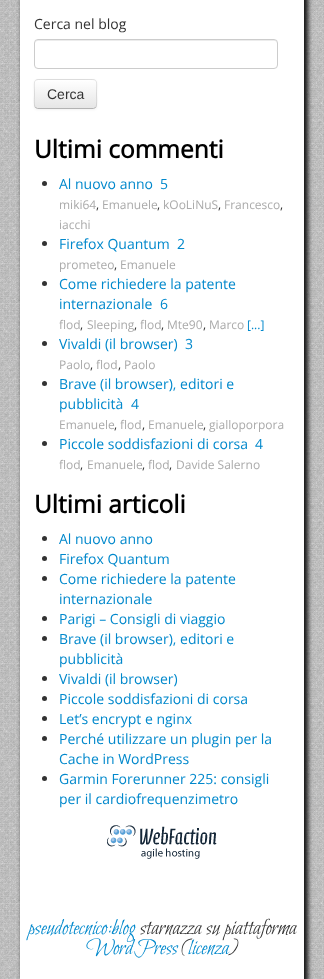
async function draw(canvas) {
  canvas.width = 324
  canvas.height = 979
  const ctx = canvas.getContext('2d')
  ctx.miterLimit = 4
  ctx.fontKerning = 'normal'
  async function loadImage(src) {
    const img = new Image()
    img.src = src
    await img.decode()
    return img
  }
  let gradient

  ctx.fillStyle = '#fff'
  ctx.fillRect(0, 0, 324, 979)
  ctx.drawImage(await loadImage('image0.png'), 0, 0, 324, 979)
  ctx.fillStyle = '#111'
  ctx.filter = 'blur(2.5px)'
  ctx.beginPath()
  ctx.rect(22, -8, 286, 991)
  ctx.fill()
  ctx.filter = 'none'
  ctx.fillStyle = '#fff'
  ctx.fillRect(20, 0, 284, 979)
  ctx.font = '14px Open Sans'
  ctx.fillStyle = '#333'
  ctx.fillText('Cerca nel blog', 34, 29)
  ctx.fillStyle = '#ececec'
  ctx.beginPath()
  ctx.moveTo(38, 41)
  ctx.lineTo(275, 41)
  ctx.lineTo(277, 42)
  ctx.lineTo(277, 44)
  ctx.bezierCurveTo(277, 42, 276, 40, 274, 40)
  ctx.lineTo(38, 40)
  ctx.bezierCurveTo(36, 40, 35, 42, 35, 44)
  ctx.bezierCurveTo(35, 42, 36, 41, 38, 41)
  ctx.closePath()
  ctx.fill()
  ctx.beginPath()
  ctx.roundRect(34.5, 39.5, 243, 29, 3.5)
  ctx.strokeStyle = '#ccc'
  ctx.stroke()
  ctx.fillStyle = '#0000000d'
  ctx.filter = 'blur(1px)'
  ctx.beginPath()
  ctx.roundRect(34, 80, 63, 30, 4)
  ctx.fill()
  ctx.filter = 'none'
  ctx.fillStyle = '#f5f5f5'
  ctx.beginPath()
  ctx.roundRect(34, 79, 63, 30, 4)
  ctx.fill()
  ctx.save()
  ctx.beginPath()
  ctx.roundRect(34, 79, 63, 30, 4)
  ctx.clip()
  gradient = ctx.createLinearGradient(66, 80, 66, 108)
  gradient.addColorStop(0, '#fff')
  gradient.addColorStop(1, '#e6e6e6')
  ctx.fillStyle = gradient
  ctx.fillRect(34, 80, 63, 28)
  ctx.restore()
  ctx.fillStyle = '#fff'
  ctx.beginPath()
  ctx.moveTo(38, 81)
  ctx.lineTo(93, 81)
  ctx.bezierCurveTo(95, 81, 96, 82, 96, 84)
  ctx.bezierCurveTo(96, 78, 88, 80, 84, 80)
  ctx.lineTo(47, 80)
  ctx.bezierCurveTo(43, 80, 35, 78, 35, 84)
  ctx.bezierCurveTo(35, 82, 36, 81, 38, 81)
  ctx.closePath()
  ctx.fill()
  ctx.beginPath()
  ctx.moveTo(95.5, 107.5)
  ctx.lineTo(93.5, 108.5)
  ctx.lineTo(37.5, 108.5)
  ctx.lineTo(35.5, 107.5)
  ctx.strokeStyle = '#b3b3b3'
  ctx.stroke()
  ctx.beginPath()
  ctx.moveTo(35.5, 107.5)
  ctx.bezierCurveTo(33.5, 105.5, 34.5, 97, 34.5, 94)
  ctx.bezierCurveTo(34.5, 78.5, 32, 79.5, 47, 79.5)
  ctx.lineTo(84, 79.5)
  ctx.bezierCurveTo(99, 79.5, 96.5, 78.5, 96.5, 94)
  ctx.bezierCurveTo(96.5, 97, 97.5, 105.5, 95.5, 107.5)
  ctx.strokeStyle = '#0000001a'
  ctx.stroke()
  ctx.font = '14px Liberation Sans'
  ctx.fillStyle = '#333'
  ctx.fillText('Cerca', 47, 99)
  ctx.font = 'bold 24.5px Open Sans'
  ctx.fillStyle = '#000'
  ctx.fillText('Ultimi commenti', 34, 158)
  ctx.fillStyle = '#333'
  ctx.beginPath()
  ctx.arc(44.5, 183.5, 2.5, 0, 2 * Math.PI)
  ctx.fill()
  ctx.font = '14px Open Sans'
  ctx.fillStyle = '#08c'
  ctx.fillText('Al nuovo anno', 59, 189)
  ctx.fillText('5', 160, 189)
  ctx.font = '12px Open Sans'
  ctx.fillStyle = '#aaa'
  ctx.fillText('miki64', 59, 209)
  ctx.fillStyle = '#333'
  ctx.fillText(',', 96, 209)
  ctx.fillStyle = '#aaa'
  ctx.fillText('Emanuele', 102, 209)
  ctx.fillStyle = '#333'
  ctx.fillText(',', 157, 209)
  ctx.fillStyle = '#aaa'
  ctx.fillText('kOoLiNuS', 163, 209)
  ctx.fillStyle = '#333'
  ctx.fillText(',', 218, 209)
  ctx.fillStyle = '#aaa'
  ctx.fillText('Francesco', 224, 209)
  ctx.fillStyle = '#333'
  ctx.fillText(',', 280, 209)
  ctx.fillStyle = '#aaa'
  ctx.fillText('iacchi', 59, 229)
  ctx.fillStyle = '#333'
  ctx.beginPath()
  ctx.arc(44.5, 243.5, 2.5, 0, 2 * Math.PI)
  ctx.fill()
  ctx.font = '14px Open Sans'
  ctx.fillStyle = '#08c'
  ctx.fillText('Firefox Quantum', 59, 249)
  ctx.fillText('2', 177, 249)
  ctx.font = '12px Open Sans'
  ctx.fillStyle = '#aaa'
  ctx.fillText('prometeo', 59, 269)
  ctx.fillStyle = '#333'
  ctx.fillText(',', 114, 269)
  ctx.fillStyle = '#aaa'
  ctx.fillText('Emanuele', 120, 269)
  ctx.fillStyle = '#333'
  ctx.beginPath()
  ctx.arc(44.5, 283.5, 2.5, 0, 2 * Math.PI)
  ctx.fill()
  ctx.font = '14px Open Sans'
  ctx.fillStyle = '#08c'
  ctx.fillText('Come richiedere la patente', 59, 289)
  ctx.fillText('internazionale', 59, 309)
  ctx.fillText('6', 160, 309)
  ctx.font = '12px Open Sans'
  ctx.fillStyle = '#aaa'
  ctx.fillText('flod', 59, 329)
  ctx.fillStyle = '#333'
  ctx.fillText(',', 80, 329)
  ctx.fillStyle = '#aaa'
  ctx.fillText('Sleeping', 87, 329)
  ctx.fillStyle = '#333'
  ctx.fillText(',', 134, 329)
  ctx.fillStyle = '#aaa'
  ctx.fillText('flod', 140, 329)
  ctx.fillStyle = '#333'
  ctx.fillText(',', 161, 329)
  ctx.fillStyle = '#aaa'
  ctx.fillText('Mte90', 167, 329)
  ctx.fillStyle = '#333'
  ctx.fillText(',', 203, 329)
  ctx.fillStyle = '#aaa'
  ctx.fillText('Marco', 209, 329)
  ctx.fillStyle = '#08c'
  ctx.fillText('[...]', 247, 329)
  ctx.fillStyle = '#333'
  ctx.beginPath()
  ctx.arc(44.5, 343.5, 2.5, 0, 2 * Math.PI)
  ctx.fill()
  ctx.font = '14px Open Sans'
  ctx.fillStyle = '#08c'
  ctx.fillText('Vivaldi (il browser)', 59, 349)
  ctx.fillText('3', 185, 349)
  ctx.font = '12px Open Sans'
  ctx.fillStyle = '#aaa'
  ctx.fillText('Paolo', 59, 369)
  ctx.fillStyle = '#333'
  ctx.fillText(',', 90, 369)
  ctx.fillStyle = '#aaa'
  ctx.fillText('flod', 96, 369)
  ctx.fillStyle = '#333'
  ctx.fillText(',', 118, 369)
  ctx.fillStyle = '#aaa'
  ctx.fillText('Paolo', 124, 369)
  ctx.fillStyle = '#333'
  ctx.beginPath()
  ctx.arc(44.5, 383.5, 2.5, 0, 2 * Math.PI)
  ctx.fill()
  ctx.font = '14px Open Sans'
  ctx.fillStyle = '#08c'
  ctx.fillText('Brave (il browser), editori e', 59, 389)
  ctx.fillText('pubblicità', 59, 409)
  ctx.fillText('4', 131, 409)
  ctx.font = '12px Open Sans'
  ctx.fillStyle = '#aaa'
  ctx.fillText('Emanuele', 59, 429)
  ctx.fillStyle = '#333'
  ctx.fillText(',', 114, 429)
  ctx.fillStyle = '#aaa'
  ctx.fillText('flod', 120, 429)
  ctx.fillStyle = '#333'
  ctx.fillText(',', 142, 429)
  ctx.fillStyle = '#aaa'
  ctx.fillText('Emanuele', 148, 429)
  ctx.fillStyle = '#333'
  ctx.fillText(',', 203, 429)
  ctx.fillStyle = '#aaa'
  ctx.fillText('gialloporpora', 209, 429)
  ctx.fillStyle = '#333'
  ctx.beginPath()
  ctx.arc(44.5, 443.5, 2.5, 0, 2 * Math.PI)
  ctx.fill()
  ctx.font = '14px Open Sans'
  ctx.fillStyle = '#08c'
  ctx.fillText('Piccole soddisfazioni di corsa', 59, 449)
  ctx.fillText('4', 255, 449)
  ctx.font = '12px Open Sans'
  ctx.fillStyle = '#aaa'
  ctx.fillText('flod', 59, 469)
  ctx.fillStyle = '#333'
  ctx.fillText(',', 80, 469)
  ctx.fillStyle = '#aaa'
  ctx.fillText('Emanuele', 87, 469)
  ctx.fillStyle = '#333'
  ctx.fillText(',', 142, 469)
  ctx.fillStyle = '#aaa'
  ctx.fillText('flod', 148, 469)
  ctx.fillStyle = '#333'
  ctx.fillText(',', 169, 469)
  ctx.fillStyle = '#aaa'
  ctx.fillText('Davide Salerno', 176, 469)
  ctx.font = 'bold 24.5px Open Sans'
  ctx.fillStyle = '#000'
  ctx.fillText('Ultimi articoli', 34, 513)
  ctx.fillStyle = '#333'
  ctx.beginPath()
  ctx.arc(44.5, 538.5, 2.5, 0, 2 * Math.PI)
  ctx.fill()
  ctx.font = '14px Open Sans'
  ctx.fillStyle = '#08c'
  ctx.fillText('Al nuovo anno', 59, 544)
  ctx.fillStyle = '#333'
  ctx.beginPath()
  ctx.arc(44.5, 558.5, 2.5, 0, 2 * Math.PI)
  ctx.fill()
  ctx.fillStyle = '#08c'
  ctx.fillText('Firefox Quantum', 59, 564)
  ctx.fillStyle = '#333'
  ctx.beginPath()
  ctx.arc(44.5, 578.5, 2.5, 0, 2 * Math.PI)
  ctx.fill()
  ctx.fillStyle = '#08c'
  ctx.fillText('Come richiedere la patente', 59, 584)
  ctx.fillText('internazionale', 59, 604)
  ctx.fillStyle = '#333'
  ctx.beginPath()
  ctx.arc(44.5, 618.5, 2.5, 0, 2 * Math.PI)
  ctx.fill()
  ctx.fillStyle = '#08c'
  ctx.fillText('Parigi – Consigli di viaggio', 59, 624)
  ctx.fillStyle = '#333'
  ctx.beginPath()
  ctx.arc(44.5, 638.5, 2.5, 0, 2 * Math.PI)
  ctx.fill()
  ctx.fillStyle = '#08c'
  ctx.fillText('Brave (il browser), editori e', 59, 644)
  ctx.fillText('pubblicità', 59, 664)
  ctx.fillStyle = '#333'
  ctx.beginPath()
  ctx.arc(44.5, 678.5, 2.5, 0, 2 * Math.PI)
  ctx.fill()
  ctx.fillStyle = '#08c'
  ctx.fillText('Vivaldi (il browser)', 59, 684)
  ctx.fillStyle = '#333'
  ctx.beginPath()
  ctx.arc(44.5, 698.5, 2.5, 0, 2 * Math.PI)
  ctx.fill()
  ctx.fillStyle = '#08c'
  ctx.fillText('Piccole soddisfazioni di corsa', 59, 704)
  ctx.fillStyle = '#333'
  ctx.beginPath()
  ctx.arc(44.5, 718.5, 2.5, 0, 2 * Math.PI)
  ctx.fill()
  ctx.fillStyle = '#08c'
  ctx.fillText('Let’s encrypt e nginx', 59, 724)
  ctx.fillStyle = '#333'
  ctx.beginPath()
  ctx.arc(44.5, 738.5, 2.5, 0, 2 * Math.PI)
  ctx.fill()
  ctx.fillStyle = '#08c'
  ctx.fillText('Perché utilizzare un plugin per la', 59, 744)
  ctx.fillText('Cache in WordPress', 59, 764)
  ctx.fillStyle = '#333'
  ctx.beginPath()
  ctx.arc(44.5, 778.5, 2.5, 0, 2 * Math.PI)
  ctx.fill()
  ctx.fillStyle = '#08c'
  ctx.fillText('Garmin Forerunner 225: consigli', 59, 784)
  ctx.fillText('per il cardiofrequenzimetro', 59, 804)
  ctx.drawImage(await loadImage('image1.png'), 107, 825, 110, 34)
  ctx.font = '23px Bilbo Swash Caps'
  ctx.fillText('pseudotecnico:blog', 28, 934)
  ctx.fillStyle = '#333'
  ctx.fillText('starnazza su piattaforma', 140, 934)
  ctx.fillStyle = '#08c'
  ctx.fillText('WordPress', 86, 954)
  ctx.fillStyle = '#333'
  ctx.fillText('(', 182, 954)
  ctx.fillStyle = '#08c'
  ctx.fillText('licenza', 188, 954)
  ctx.fillStyle = '#333'
  ctx.fillText(')', 229, 954)
}

draw(document.querySelector('canvas'))
